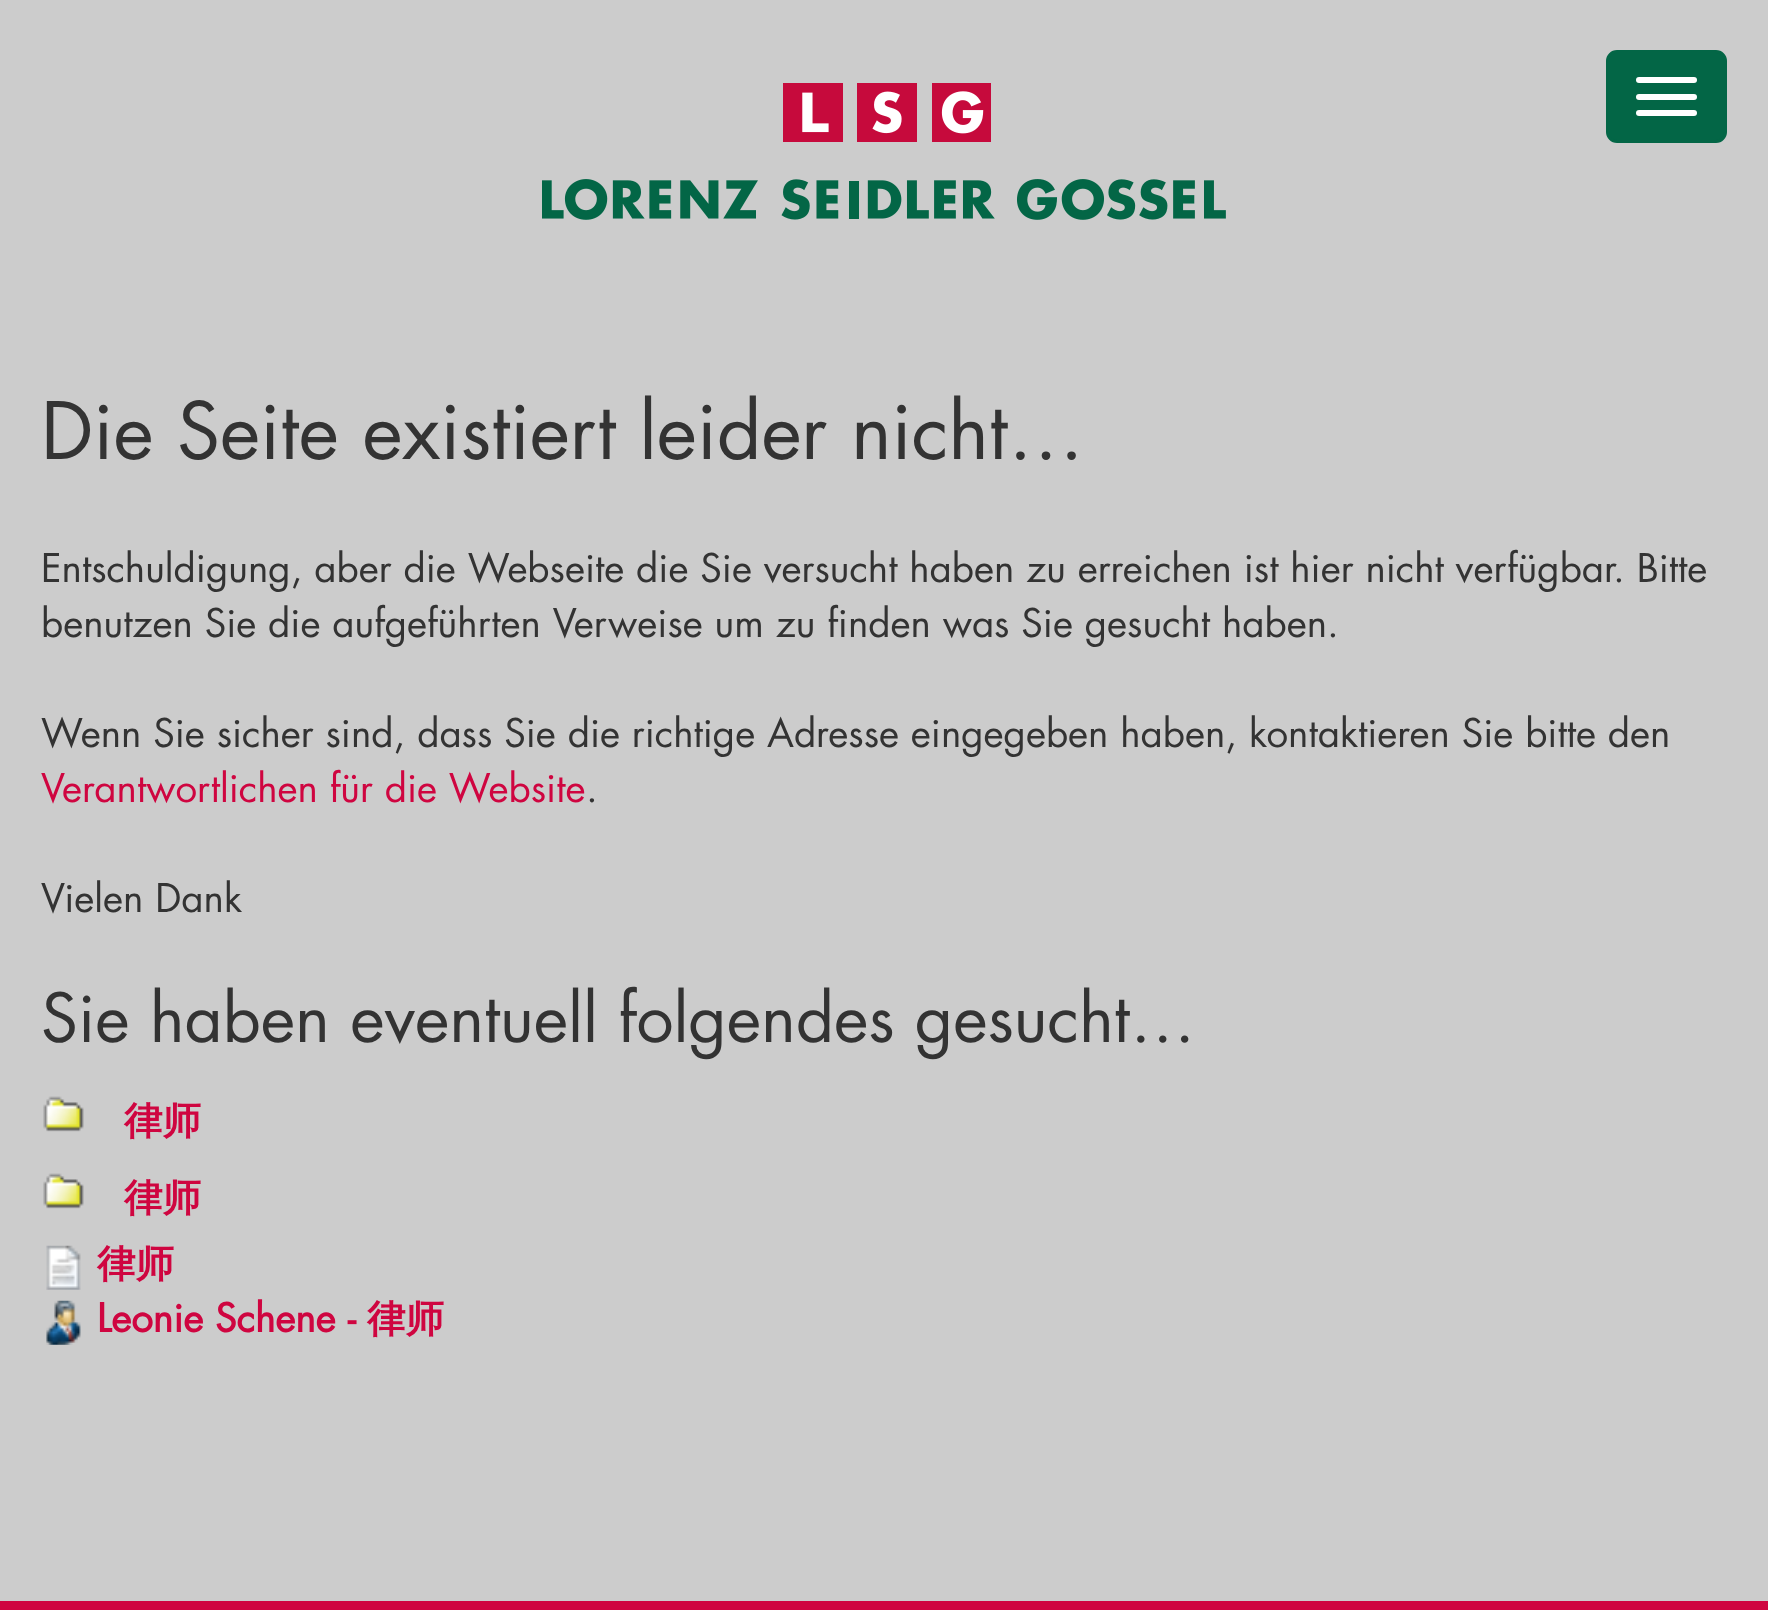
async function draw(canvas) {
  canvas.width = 1768
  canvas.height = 1610
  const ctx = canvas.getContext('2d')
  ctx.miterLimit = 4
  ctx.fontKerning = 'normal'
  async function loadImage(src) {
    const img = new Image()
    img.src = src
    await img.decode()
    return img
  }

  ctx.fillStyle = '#ccc'
  ctx.fillRect(0, 0, 1768, 1610)
  ctx.drawImage(await loadImage('image0.png'), 542, 83, 684, 137)
  ctx.fillStyle = '#036646'
  ctx.beginPath()
  ctx.roundRect(1607.5, 51.5, 118, 90, 9.5)
  ctx.fill()
  ctx.strokeStyle = '#036646'
  ctx.lineWidth = 3
  ctx.stroke()
  ctx.fillStyle = '#fff'
  ctx.beginPath()
  ctx.roundRect(1636, 77, 61, 6, 3)
  ctx.fill()
  ctx.beginPath()
  ctx.roundRect(1636, 94, 61, 6, 3)
  ctx.fill()
  ctx.beginPath()
  ctx.roundRect(1636, 110, 61, 6, 3)
  ctx.fill()
  ctx.font = '77px Futura'
  ctx.fillStyle = '#333'
  ctx.fillText('Die Seite existiert leider nicht…', 41, 459)
  ctx.font = '38.5px Futura'
  ctx.fillText('Entschuldigung, aber die Webseite die Sie versucht haben zu erreichen ist hier nicht verfügbar. Bitte', 41, 582)
  ctx.fillText('benutzen Sie die aufgeführten Verweise um zu finden was Sie gesucht haben.', 41, 637)
  ctx.fillText('Wenn Sie sicher sind, dass Sie die richtige Adresse eingegeben haben, kontaktieren Sie bitte den', 41, 747)
  ctx.fillStyle = '#cf0540'
  ctx.fillText('Verantwortlichen für die Website', 41, 802)
  ctx.fillStyle = '#333'
  ctx.fillText('.', 586, 802)
  ctx.fillText('Vielen Dank', 41, 912)
  ctx.font = '66px Futura'
  ctx.fillText('Sie haben eventuell folgendes gesucht…', 41, 1042)
  ctx.drawImage(await loadImage('image1.png'), 43, 1096, 41, 36)
  ctx.font = 'bold 38.5px WenQuanYi Zen Hei'
  ctx.fillStyle = '#cf0540'
  ctx.fillText('律师', 124, 1134)
  ctx.drawImage(await loadImage('image1.png'), 43, 1173, 41, 36)
  ctx.fillText('律师', 124, 1211)
  ctx.drawImage(await loadImage('image2.png'), 46, 1245, 35, 45)
  ctx.fillText('律师', 97, 1277)
  ctx.drawImage(await loadImage('image3.png'), 46, 1300, 35, 45)
  ctx.font = 'bold 38.5px Futura'
  ctx.fillText('Leonie Schene -', 97, 1332)
  ctx.font = 'bold 38.5px WenQuanYi Zen Hei'
  ctx.fillText('律师', 367, 1332)
  ctx.fillRect(0, 1601, 1768, 9)
}

draw(document.querySelector('canvas'))
